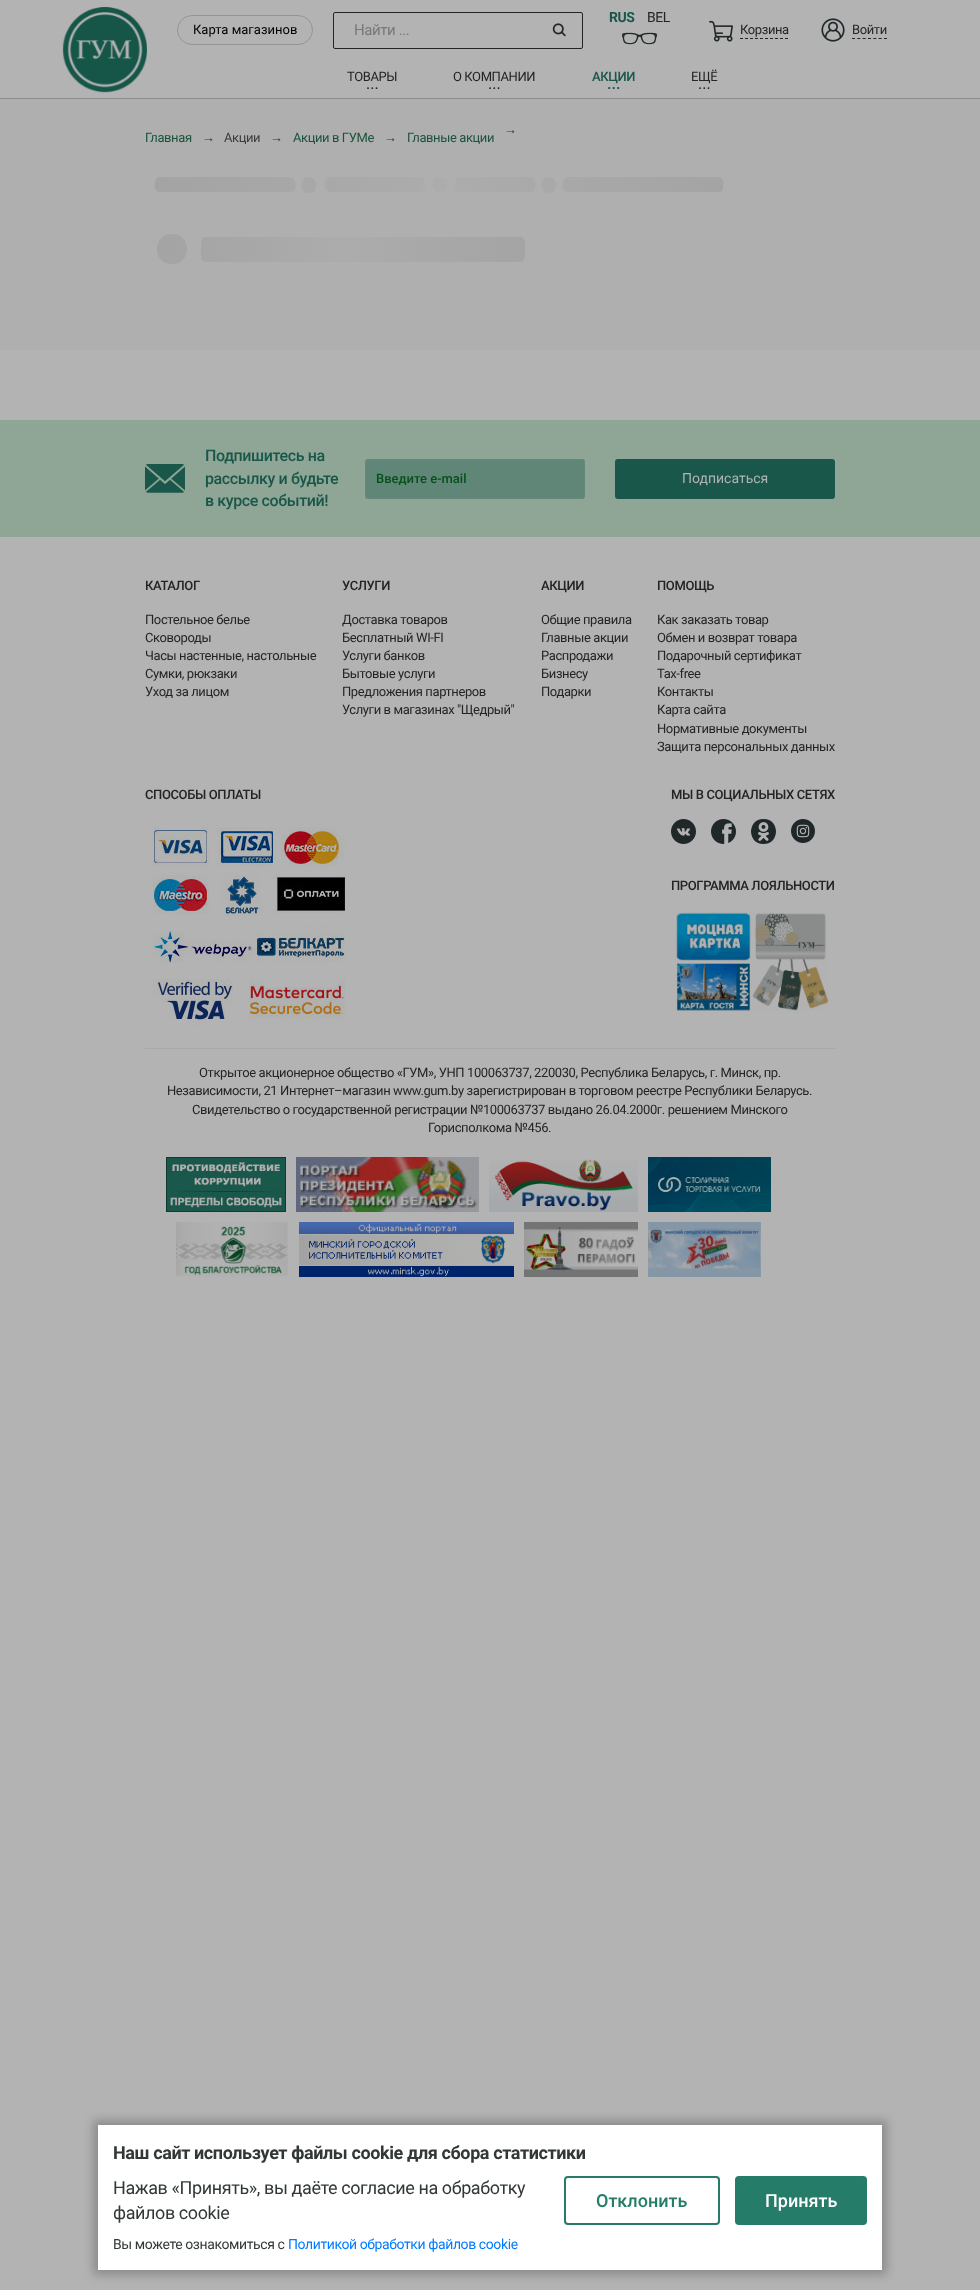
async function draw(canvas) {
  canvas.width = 980
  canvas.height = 2290
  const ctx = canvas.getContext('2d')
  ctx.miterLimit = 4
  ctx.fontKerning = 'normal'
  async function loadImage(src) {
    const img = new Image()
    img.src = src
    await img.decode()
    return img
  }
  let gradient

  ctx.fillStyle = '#b3b3b3'
  ctx.fillRect(0, 0, 980, 2290)
  ctx.fillStyle = '#8c8c8c'
  ctx.fillRect(0, 98, 980, 1)
  ctx.drawImage(await loadImage('image0.png'), 62, 7, 85, 86)
  ctx.letterSpacing = '-0.4px'
  ctx.font = 'bold 14px Roboto'
  ctx.fillStyle = '#19574a'
  ctx.fillText('RUS', 609, 22)
  ctx.font = '14px Roboto'
  ctx.fillStyle = '#242424'
  ctx.fillText('BEL', 647, 22)
  ctx.drawImage(await loadImage('image1.png'), 622, 32, 35, 13)
  ctx.beginPath()
  ctx.roundRect(177.5, 15.5, 135, 29, 14.5)
  ctx.strokeStyle = '#949494'
  ctx.stroke()
  ctx.letterSpacing = '0px'
  ctx.font = '13px Roboto'
  ctx.fillStyle = '#000'
  ctx.fillText('Карта магазинов', 193, 34)
  ctx.beginPath()
  ctx.roundRect(333.5, 12.5, 249, 36, 1.5)
  ctx.strokeStyle = '#242424'
  ctx.stroke()
  ctx.letterSpacing = '-0.4px'
  ctx.font = '15px Roboto'
  ctx.fillStyle = '#787878'
  ctx.fillText('Найти ...', 354, 35)
  ctx.drawImage(await loadImage('image2.png'), 552, 23, 14, 14)
  ctx.drawImage(await loadImage('image3.png'), 709, 20, 24, 22)
  ctx.beginPath()
  ctx.moveTo(740, 38.5)
  ctx.lineTo(788, 38.5)
  ctx.strokeStyle = '#1f2729'
  ctx.setLineDash([3, 2])
  ctx.stroke()
  ctx.font = '13px Roboto'
  ctx.fillStyle = '#242424'
  ctx.fillText('Корзина', 740, 34)
  ctx.drawImage(await loadImage('image4.png'), 821, 18, 24, 24)
  ctx.beginPath()
  ctx.moveTo(852, 38.5)
  ctx.lineTo(887, 38.5)
  ctx.setLineDash([3, 2.33])
  ctx.stroke()
  ctx.fillText('Войти', 852, 34)
  ctx.fillText('ТОВАРЫ', 347, 81)
  ctx.letterSpacing = '0px'
  ctx.font = '16px Roboto'
  ctx.fillText('...', 366, 89)
  ctx.letterSpacing = '-0.4px'
  ctx.font = '13px Roboto'
  ctx.fillText('О КОМПАНИИ', 453, 81)
  ctx.letterSpacing = '0px'
  ctx.font = '16px Roboto'
  ctx.fillText('...', 488, 89)
  ctx.letterSpacing = '-0.4px'
  ctx.font = '500 13px Roboto'
  ctx.fillStyle = '#19574a'
  ctx.fillText('АКЦИИ', 592, 81)
  ctx.letterSpacing = '0px'
  ctx.font = '500 16px Roboto'
  ctx.fillText('...', 607, 89)
  ctx.letterSpacing = '-0.4px'
  ctx.font = '13px Roboto'
  ctx.fillStyle = '#242424'
  ctx.fillText('ЕЩЁ', 691, 81)
  ctx.letterSpacing = '0px'
  ctx.font = '16px Roboto'
  ctx.fillText('...', 698, 89)
  ctx.fillStyle = '#afafaf'
  ctx.fillRect(0, 99, 980, 251)
  ctx.letterSpacing = '-0.4px'
  ctx.font = '13px Roboto'
  ctx.fillStyle = '#19543b'
  ctx.fillText('Главная', 145, 142)
  ctx.font = '13px Liberation Sans'
  ctx.fillStyle = '#313837'
  ctx.fillText('→', 202, 142)
  ctx.font = '13px Roboto'
  ctx.fillStyle = '#3b3b3b'
  ctx.fillText('Акции', 224, 142)
  ctx.font = '13px Liberation Sans'
  ctx.fillStyle = '#313837'
  ctx.fillText('→', 270, 142)
  ctx.font = '13px Roboto'
  ctx.fillStyle = '#19543b'
  ctx.fillText('Акции в ГУМе', 293, 142)
  ctx.font = '13px Liberation Sans'
  ctx.fillStyle = '#313837'
  ctx.fillText('→', 384, 142)
  ctx.font = '13px Roboto'
  ctx.fillStyle = '#19543b'
  ctx.fillText('Главные акции', 407, 142)
  ctx.font = '13px Liberation Sans'
  ctx.fillStyle = '#313837'
  ctx.fillText('→', 504, 134)
  gradient = ctx.createLinearGradient(145, 147, 745, 147)
  gradient.addColorStop(0, '#a3a3a3')
  gradient.addColorStop(0.5, '#acacac')
  gradient.addColorStop(1, '#a3a3a3')
  ctx.fillStyle = gradient
  ctx.beginPath()
  ctx.moveTo(160, 177)
  ctx.bezierCurveTo(153, 177, 153, 191, 159, 192)
  ctx.lineTo(290, 192)
  ctx.bezierCurveTo(291, 192, 293, 191, 294, 191)
  ctx.bezierCurveTo(297, 187, 296, 177, 290, 177)
  ctx.closePath()
  ctx.moveTo(309, 177)
  ctx.bezierCurveTo(299, 177, 299, 193, 309, 193)
  ctx.bezierCurveTo(319, 193, 319, 177, 309, 177)
  ctx.closePath()
  ctx.moveTo(330, 177)
  ctx.bezierCurveTo(323, 177, 323, 192, 330, 192)
  ctx.lineTo(405, 192)
  ctx.bezierCurveTo(413, 192, 425, 196, 425, 185)
  ctx.bezierCurveTo(425, 182, 425, 177, 420, 177)
  ctx.closePath()
  ctx.moveTo(440, 177)
  ctx.bezierCurveTo(430, 177, 430, 193, 440, 193)
  ctx.bezierCurveTo(450, 193, 450, 177, 440, 177)
  ctx.closePath()
  ctx.moveTo(460, 177)
  ctx.bezierCurveTo(453, 177, 453, 192, 460, 192)
  ctx.lineTo(532, 192)
  ctx.bezierCurveTo(537, 190, 537, 177, 530, 177)
  ctx.closePath()
  ctx.moveTo(549, 177)
  ctx.bezierCurveTo(539, 177, 539, 193, 549, 193)
  ctx.bezierCurveTo(559, 193, 559, 177, 549, 177)
  ctx.closePath()
  ctx.moveTo(568, 177)
  ctx.bezierCurveTo(562, 177, 561, 189, 565, 191)
  ctx.lineTo(568, 192)
  ctx.lineTo(718, 192)
  ctx.bezierCurveTo(719, 192, 721, 191, 722, 191)
  ctx.lineTo(723, 188)
  ctx.bezierCurveTo(724, 184, 724, 177, 718, 177)
  ctx.closePath()
  ctx.fill('evenodd')
  gradient = ctx.createLinearGradient(145, 217, 545, 217)
  gradient.addColorStop(0, '#a3a3a3')
  gradient.addColorStop(0.5, '#acacac')
  gradient.addColorStop(1, '#a3a3a3')
  ctx.fillStyle = gradient
  ctx.beginPath()
  ctx.moveTo(172, 234)
  ctx.bezierCurveTo(152, 234, 152, 264, 172, 264)
  ctx.bezierCurveTo(192, 264, 192, 234, 172, 234)
  ctx.closePath()
  ctx.moveTo(206, 237)
  ctx.bezierCurveTo(200, 237, 201, 245, 201, 250)
  ctx.bezierCurveTo(201, 254, 200, 262, 206, 262)
  ctx.lineTo(520, 262)
  ctx.bezierCurveTo(526, 262, 525, 254, 525, 250)
  ctx.bezierCurveTo(525, 245, 526, 237, 520, 237)
  ctx.closePath()
  ctx.fill('evenodd')
  ctx.fillStyle = '#00000036'
  ctx.filter = 'blur(5px)'
  ctx.beginPath()
  ctx.rect(93, 2120, 794, 155)
  ctx.fill()
  ctx.filter = 'none'
  ctx.fillStyle = '#fff'
  ctx.fillRect(98, 2125, 784, 145)
  ctx.font = 'bold 18px Roboto'
  ctx.fillStyle = '#313837'
  ctx.fillText('Наш сайт использует файлы cookie для сбора статистики', 113, 2159)
  ctx.font = '18px Roboto'
  ctx.fillText('Нажав «Принять», вы даёте согласие на обработку', 113, 2194)
  ctx.fillText('файлов cookie', 113, 2219)
  ctx.beginPath()
  ctx.roundRect(565, 2177, 154, 47, 3)
  ctx.strokeStyle = '#247c69'
  ctx.lineWidth = 2
  ctx.setLineDash([])
  ctx.stroke()
  ctx.letterSpacing = '0px'
  ctx.font = '500 18px Roboto'
  ctx.fillStyle = '#247c69'
  ctx.fillText('Отклонить', 596, 2207)
  ctx.beginPath()
  ctx.roundRect(735, 2176, 132, 49, 4)
  ctx.fill()
  ctx.fillStyle = '#fff'
  ctx.fillText('Принять', 765, 2207)
  ctx.letterSpacing = '-0.4px'
  ctx.font = '14px Roboto'
  ctx.fillStyle = '#313837'
  ctx.fillText('Вы можете ознакомиться с', 113, 2249)
  ctx.fillStyle = '#007bff'
  ctx.fillText('Политикой обработки файлов cookie', 288, 2249)
  ctx.fillStyle = '#8fa595'
  ctx.fillRect(0, 420, 980, 117)
  ctx.drawImage(await loadImage('image5.png'), 145, 464, 40, 29)
  ctx.font = '500 16px Roboto'
  ctx.fillStyle = '#19574a'
  ctx.fillText('Подпишитесь на', 205, 461)
  ctx.fillText('рассылку и будьте', 205, 484)
  ctx.fillText('в курсе событий!', 205, 506)
  ctx.fillStyle = '#608677'
  ctx.beginPath()
  ctx.roundRect(365, 459, 220, 40, 3)
  ctx.fill()
  ctx.strokeStyle = '#b3b3b30d'
  ctx.lineWidth = 1
  ctx.strokeRect(365.5, 459.5, 219, 39)
  ctx.letterSpacing = '0px'
  ctx.font = '500 13px Roboto'
  ctx.fillStyle = '#06501b'
  ctx.fillText('Введите e-mail', 376, 483)
  ctx.fillStyle = '#19574a'
  ctx.beginPath()
  ctx.roundRect(615, 459, 220, 40, 3)
  ctx.fill()
  ctx.font = '14px Roboto'
  ctx.fillStyle = '#b3b3b3'
  ctx.fillText('Подписаться', 682, 483)
  ctx.letterSpacing = '-0.4px'
  ctx.font = '500 13px Roboto'
  ctx.fillStyle = '#242424'
  ctx.fillText('КАТАЛОГ', 145, 590)
  ctx.font = '13px Roboto'
  ctx.fillText('Постельное белье', 145, 624)
  ctx.fillText('Сковороды', 145, 642)
  ctx.fillText('Часы настенные, настольные', 145, 660)
  ctx.fillText('Сумки, рюкзаки', 145, 678)
  ctx.fillText('Уход за лицом', 145, 696)
  ctx.font = '500 13px Roboto'
  ctx.fillText('УСЛУГИ', 342, 590)
  ctx.font = '13px Roboto'
  ctx.fillText('Доставка товаров', 342, 624)
  ctx.fillText('Бесплатный WI-FI', 342, 642)
  ctx.fillText('Услуги банков', 342, 660)
  ctx.fillText('Бытовые услуги', 342, 678)
  ctx.fillText('Предложения партнеров', 342, 696)
  ctx.fillText('Услуги в магазинах "Щедрый"', 342, 714)
  ctx.font = '500 13px Roboto'
  ctx.fillText('АКЦИИ', 541, 590)
  ctx.font = '13px Roboto'
  ctx.fillText('Общие правила', 541, 624)
  ctx.fillText('Главные акции', 541, 642)
  ctx.fillText('Распродажи', 541, 660)
  ctx.fillText('Бизнесу', 541, 678)
  ctx.fillText('Подарки', 541, 696)
  ctx.font = '500 13px Roboto'
  ctx.fillText('ПОМОЩЬ', 657, 590)
  ctx.font = '13px Roboto'
  ctx.fillText('Как заказать товар', 657, 624)
  ctx.fillText('Обмен и возврат товара', 657, 642)
  ctx.fillText('Подарочный сертификат', 657, 660)
  ctx.fillText('Tax-free', 657, 678)
  ctx.fillText('Контакты', 657, 696)
  ctx.fillText('Карта сайта', 657, 714)
  ctx.fillText('Нормативные документы', 657, 733)
  ctx.fillText('Защита персональных данных', 657, 751)
  ctx.font = '500 13px Roboto'
  ctx.fillText('СПОСОБЫ ОПЛАТЫ', 145, 799)
  ctx.drawImage(await loadImage('image6.png'), 153, 827, 192, 200)
  ctx.fillText('МЫ В СОЦИАЛЬНЫХ СЕТЯХ', 671, 799)
  ctx.drawImage(await loadImage('image7.png'), 671, 819, 25, 25)
  ctx.drawImage(await loadImage('image8.png'), 711, 819, 25, 25)
  ctx.drawImage(await loadImage('image9.png'), 751, 819, 25, 25)
  ctx.drawImage(await loadImage('image10.png'), 791, 819, 24, 24)
  ctx.fillText('ПРОГРАММА ЛОЯЛЬНОСТИ', 671, 890)
  ctx.drawImage(await loadImage('image11.png'), 676, 912, 153, 99)
  ctx.fillStyle = '#a8a8a8'
  ctx.fillRect(145, 1048, 690, 1)
  ctx.font = '13px Roboto'
  ctx.fillStyle = '#242424'
  ctx.fillText('Открытое акционерное общество «ГУМ», УНП 100063737, 220030, Республика Беларусь, г. Минск, пр.', 199, 1077)
  ctx.fillText('Независимости, 21 Интернет–магазин www.gum.by зарегистрирован в торговом реестре Республики Беларусь.', 167, 1095)
  ctx.fillText('Свидетельство о государственной регистрации №100063737 выдано 26.04.2000г. решением Минского', 192, 1114)
  ctx.fillText('Горисполкома №456.', 428, 1132)
  ctx.drawImage(await loadImage('image12.png'), 166, 1157, 120, 55)
  ctx.drawImage(await loadImage('image13.png'), 296, 1157, 183, 55)
  ctx.drawImage(await loadImage('image14.png'), 489, 1159, 149, 53)
  ctx.drawImage(await loadImage('image15.png'), 648, 1157, 123, 55)
  ctx.drawImage(await loadImage('image16.png'), 176, 1222, 112, 55)
  ctx.drawImage(await loadImage('image17.png'), 299, 1222, 215, 55)
  ctx.drawImage(await loadImage('image18.png'), 524, 1222, 114, 55)
  ctx.drawImage(await loadImage('image19.png'), 648, 1222, 113, 55)
}

draw(document.querySelector('canvas'))
